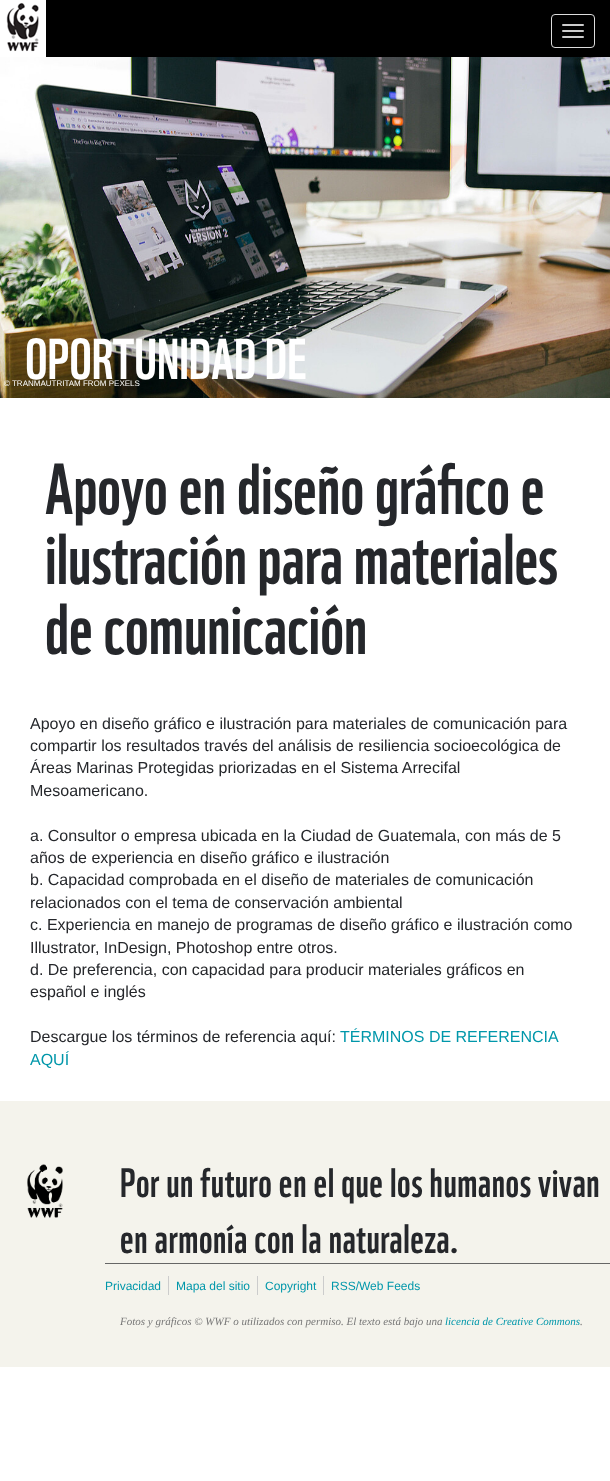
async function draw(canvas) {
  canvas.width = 610
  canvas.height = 1481
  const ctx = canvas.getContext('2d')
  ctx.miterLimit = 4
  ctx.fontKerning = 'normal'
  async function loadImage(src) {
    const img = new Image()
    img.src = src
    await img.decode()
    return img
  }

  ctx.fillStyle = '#fff'
  ctx.fillRect(0, 0, 610, 1481)
  ctx.drawImage(await loadImage('image0.png'), 0, 0, 46, 57)
  ctx.fillStyle = '#000'
  ctx.fillRect(46, 0, 564, 57)
  ctx.beginPath()
  ctx.roundRect(551.5, 14.5, 43, 33, 3.5)
  ctx.strokeStyle = '#ddd'
  ctx.stroke()
  ctx.fillStyle = '#ccc'
  ctx.beginPath()
  ctx.roundRect(562, 24, 22, 2, 1)
  ctx.fill()
  ctx.beginPath()
  ctx.roundRect(562, 30, 22, 2, 1)
  ctx.fill()
  ctx.beginPath()
  ctx.roundRect(562, 36, 22, 2, 1)
  ctx.fill()
  ctx.drawImage(await loadImage('image1.png'), 0, 57, 610, 341)
  ctx.font = '56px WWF'
  ctx.fillStyle = '#fff'
  ctx.fillText('OPORTUNIDAD DE', 25, 379)
  ctx.font = '8px Liberation Sans'
  ctx.fillText('© TRANMAUTRITAM FROM PEXELS', 4, 386)
  ctx.wordSpacing = '0.5px'
  ctx.font = '70px WWF'
  ctx.fillStyle = '#25272b'
  ctx.fillText('Apoyo en diseño gráfico e', 45, 514)
  ctx.wordSpacing = '0px'
  ctx.fillText('ilustración para materiales', 45, 584)
  ctx.fillText('de comunicación', 45, 654)
  ctx.font = '16px Liberation Sans'
  ctx.fillText('Apoyo en diseño gráfico e ilustración para materiales de comunicación para', 30, 729)
  ctx.fillText('compartir los resultados través del análisis de resiliencia socioecológica de', 30, 751)
  ctx.fillText('Áreas Marinas Protegidas priorizadas en el Sistema Arrecifal', 30, 773)
  ctx.fillText('Mesoamericano.', 30, 796)
  ctx.fillText('a. Consultor o empresa ubicada en la Ciudad de Guatemala, con más de 5', 30, 841)
  ctx.fillText('años de experiencia en diseño gráfico e ilustración', 30, 863)
  ctx.fillText('b. Capacidad comprobada en el diseño de materiales de comunicación', 30, 885)
  ctx.fillText('relacionados con el tema de conservación ambiental', 30, 908)
  ctx.fillText('c. Experiencia en manejo de programas de diseño gráfico e ilustración como', 30, 930)
  ctx.fillText('Illustrator, InDesign, Photoshop entre otros.', 30, 953)
  ctx.fillText('d. De preferencia, con capacidad para producir materiales gráficos en', 30, 975)
  ctx.fillText('español e inglés', 30, 997)
  ctx.fillText('Descargue los términos de referencia aquí:', 30, 1042)
  ctx.fillStyle = '#0097aa'
  ctx.fillText('TÉRMINOS DE REFERENCIA', 340, 1042)
  ctx.fillText('AQUÍ', 30, 1065)
  ctx.fillStyle = '#f4f3ec'
  ctx.fillRect(0, 1101, 610, 266)
  ctx.drawImage(await loadImage('image2.png'), 27, 1164, 36, 54)
  ctx.fillStyle = '#666'
  ctx.fillRect(105, 1263, 505, 1)
  ctx.letterSpacing = '0.5px'
  ctx.font = '40px WWF'
  ctx.fillStyle = '#25272b'
  ctx.fillText('Por un futuro en el que los humanos vivan', 120, 1197)
  ctx.fillText('en armonía con la naturaleza.', 120, 1253)
  ctx.fillStyle = '#ccc'
  ctx.fillRect(168, 1276, 1, 19)
  ctx.letterSpacing = '0px'
  ctx.font = '12px Liberation Sans'
  ctx.fillStyle = '#0097aa'
  ctx.fillText('Privacidad', 105, 1290)
  ctx.fillStyle = '#ccc'
  ctx.fillRect(257, 1276, 1, 19)
  ctx.fillStyle = '#0097aa'
  ctx.fillText('Mapa del sitio', 176, 1290)
  ctx.fillStyle = '#ccc'
  ctx.fillRect(323, 1276, 1, 19)
  ctx.fillStyle = '#0097aa'
  ctx.fillText('Copyright', 265, 1290)
  ctx.fillText('RSS/Web Feeds', 331, 1290)
  ctx.font = 'italic 11px Liberation Serif'
  ctx.fillStyle = '#777'
  ctx.fillText('Fotos y gráficos © WWF o utilizados con permiso. El texto está bajo una', 120, 1325)
  ctx.fillStyle = '#0097aa'
  ctx.fillText('licencia de Creative Commons', 445, 1325)
  ctx.fillStyle = '#777'
  ctx.fillText('.', 580, 1325)
}

draw(document.querySelector('canvas'))
